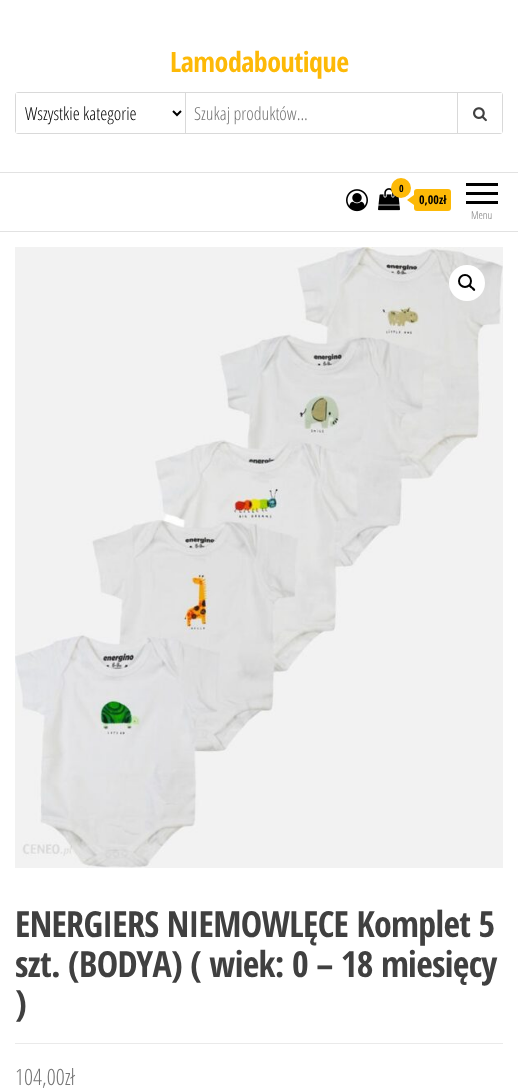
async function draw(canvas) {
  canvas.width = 518
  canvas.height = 1089
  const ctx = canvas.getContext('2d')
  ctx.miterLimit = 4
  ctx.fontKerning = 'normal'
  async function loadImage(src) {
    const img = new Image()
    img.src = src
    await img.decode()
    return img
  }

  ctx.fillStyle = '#fff'
  ctx.fillRect(0, 0, 518, 1089)
  ctx.letterSpacing = '-0.5px'
  ctx.font = 'bold 28px Open Sans Condensed'
  ctx.fillStyle = '#fdb907'
  ctx.fillText('Lamodaboutique', 170, 72)
  ctx.beginPath()
  ctx.roundRect(15.5, 92.5, 487, 41, 2.5)
  ctx.strokeStyle = '#d9d9d9'
  ctx.stroke()
  ctx.fillStyle = '#fff'
  ctx.fillRect(16, 93, 2, 40)
  ctx.fillStyle = '#d9d9d9'
  ctx.fillRect(185, 93, 1, 40)
  ctx.beginPath()
  ctx.moveTo(173, 111)
  ctx.lineTo(177, 115)
  ctx.lineTo(181, 111)
  ctx.strokeStyle = '#000'
  ctx.lineWidth = 2
  ctx.stroke()
  ctx.letterSpacing = '0px'
  ctx.font = '300 18px Open Sans Condensed'
  ctx.fillStyle = '#000'
  ctx.fillText('Wszystkie kategorie', 25, 120)
  ctx.fillStyle = '#fff'
  ctx.fillRect(500, 93, 2, 40)
  ctx.fillStyle = '#757575'
  ctx.fillText('Szukaj produktów...', 194, 120)
  ctx.fillStyle = '#d9d9d9'
  ctx.fillRect(457, 93, 1, 40)
  ctx.drawImage(await loadImage('image0.png'), 473, 107, 14, 15)
  ctx.fillStyle = '#e2e2e2'
  ctx.fillRect(0, 172, 518, 1)
  ctx.fillRect(0, 231, 518, 1)
  ctx.drawImage(await loadImage('image1.png'), 346, 189, 22, 23)
  ctx.drawImage(await loadImage('image2.png'), 378, 188, 22, 23)
  ctx.fillStyle = '#fdb907'
  ctx.beginPath()
  ctx.arc(401, 188, 10, 0, 2 * Math.PI)
  ctx.fill()
  ctx.font = 'bold 10px Open Sans Condensed'
  ctx.fillStyle = '#000'
  ctx.fillText('0', 399, 192)
  ctx.fillStyle = '#fdb907'
  ctx.beginPath()
  ctx.roundRect(414, 189, 37, 22, 3)
  ctx.fill()
  ctx.beginPath()
  ctx.moveTo(414, 195)
  ctx.lineTo(414, 205)
  ctx.lineTo(407, 200)
  ctx.closePath()
  ctx.fill()
  ctx.font = 'bold 12px Open Sans Condensed'
  ctx.fillStyle = '#000'
  ctx.fillText('0,00zł', 419, 204)
  ctx.fillRect(466, 183, 32, 3)
  ctx.fillRect(466, 192, 32, 3)
  ctx.fillRect(466, 201, 32, 3)
  ctx.font = '300 11px Open Sans Condensed'
  ctx.fillStyle = '#757575'
  ctx.fillText('Menu', 471, 219)
  ctx.drawImage(await loadImage('image3.png'), 15, 247, 488, 621)
  ctx.fillStyle = '#fff'
  ctx.beginPath()
  ctx.arc(467, 283, 18, 0, 2 * Math.PI)
  ctx.fill()
  ctx.beginPath()
  ctx.arc(465, 281, 6, 0, 2 * Math.PI)
  ctx.stroke()
  ctx.fillStyle = '#000'
  ctx.beginPath()
  ctx.moveTo(469, 285)
  ctx.bezierCurveTo(470.5, 284, 472, 286.5, 472.5, 287)
  ctx.bezierCurveTo(473.5, 287.5, 476, 289.5, 475, 290.5)
  ctx.bezierCurveTo(473.5, 292, 472, 289, 471.5, 288.5)
  ctx.bezierCurveTo(470.5, 288, 468, 286, 469, 285)
  ctx.closePath()
  ctx.fill()
  ctx.fillStyle = '#eaeaea'
  ctx.fillRect(15, 1043, 488, 1)
  ctx.letterSpacing = '-0.7px'
  ctx.font = 'bold 36px Open Sans Condensed'
  ctx.fillStyle = '#404040'
  ctx.fillText('ENERGIERS NIEMOWLĘCE Komplet 5', 15, 937)
  ctx.fillText('szt. (BODYΑ) ( wiek: 0 – 18 miesięcy', 15, 977)
  ctx.fillText(')', 15, 1016)
  ctx.letterSpacing = '0px'
  ctx.font = '300 22.5px Open Sans Condensed'
  ctx.fillStyle = '#757575'
  ctx.fillText('104,00zł', 15, 1085)
}

draw(document.querySelector('canvas'))
